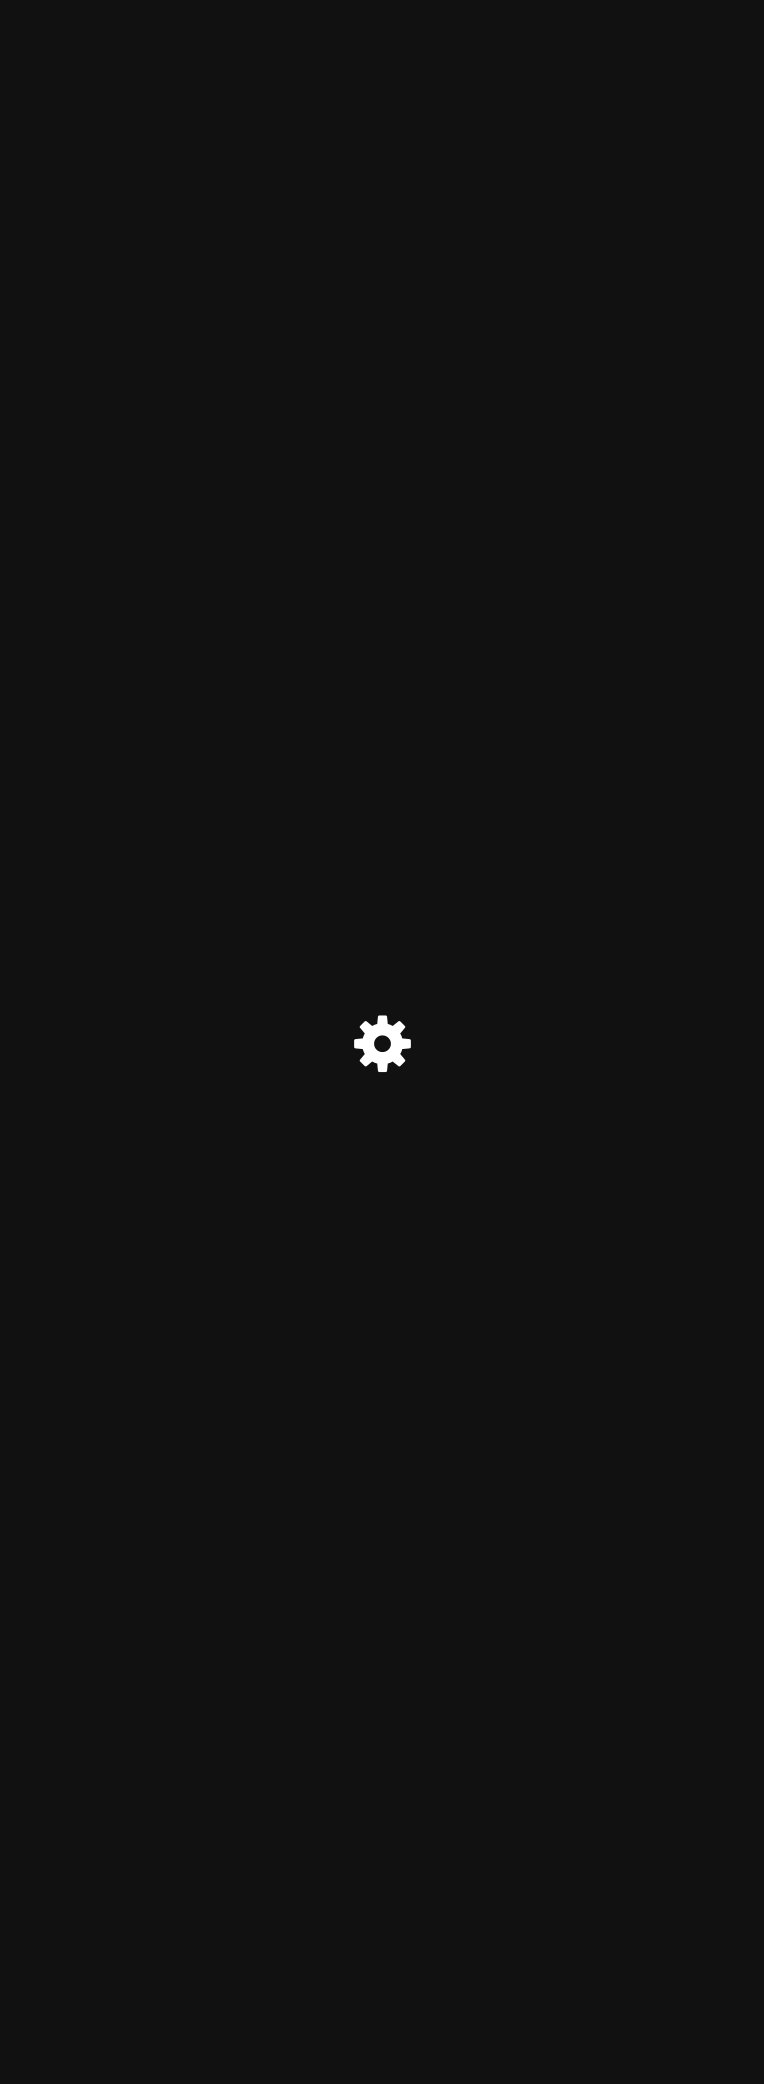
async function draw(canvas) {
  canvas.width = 764
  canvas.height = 2084
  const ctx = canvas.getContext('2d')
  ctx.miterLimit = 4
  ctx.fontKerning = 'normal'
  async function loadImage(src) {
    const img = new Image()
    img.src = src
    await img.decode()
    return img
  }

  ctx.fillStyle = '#111'
  ctx.fillRect(0, 0, 764, 2084)
  ctx.drawImage(await loadImage('image0.png'), 354, 1015, 57, 58)
}

draw(document.querySelector('canvas'))
